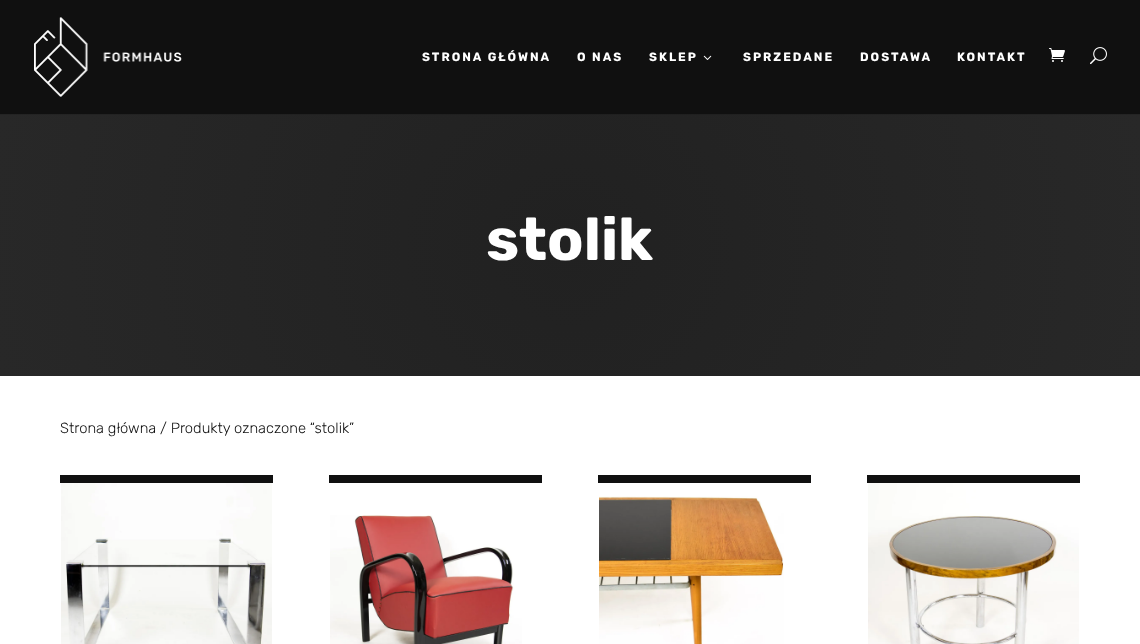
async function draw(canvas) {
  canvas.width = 1140
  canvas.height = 644
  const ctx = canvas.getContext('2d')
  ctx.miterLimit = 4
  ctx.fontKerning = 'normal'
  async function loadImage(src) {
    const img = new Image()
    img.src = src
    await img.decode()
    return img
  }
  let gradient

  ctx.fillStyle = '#fff'
  ctx.fillRect(0, 0, 1140, 644)
  ctx.fillStyle = '#101010'
  ctx.fillRect(0, 0, 1140, 114)
  ctx.drawImage(await loadImage('image0.png'), 34, 17, 148, 80)
  ctx.letterSpacing = '2px'
  ctx.font = 'bold 12px Rubik'
  ctx.fillStyle = '#fff'
  ctx.fillText('STRONA GŁÓWNA', 422, 61)
  ctx.fillText('O NAS', 577, 61)
  ctx.fillText('SKLEP', 649, 61)
  ctx.drawImage(await loadImage('image1.png'), 703, 55, 9, 5)
  ctx.fillText('SPRZEDANE', 743, 61)
  ctx.fillText('DOSTAWA', 860, 61)
  ctx.fillText('KONTAKT', 957, 61)
  ctx.drawImage(await loadImage('image2.png'), 1049, 48, 16, 14)
  ctx.drawImage(await loadImage('image3.png'), 1090, 47, 17, 18)
  gradient = ctx.createRadialGradient(570, 245, 0, 570, 245, 585)
  gradient.addColorStop(0, '#212121')
  gradient.addColorStop(1, '#282828')
  ctx.fillStyle = gradient
  ctx.fillRect(0, 115, 1140, 261)
  gradient = ctx.createRadialGradient(570, 245, 0, 570, 245, 585)
  gradient.addColorStop(0, '#1e1e1e')
  gradient.addColorStop(1, '#242424')
  ctx.fillStyle = gradient
  ctx.fillRect(0, 114, 1140, 1)
  ctx.letterSpacing = '0px'
  ctx.font = 'bold 60px Rubik'
  ctx.fillStyle = '#fff'
  ctx.fillText('stolik', 486, 260)
  ctx.font = '300 14.75px Rubik'
  ctx.fillStyle = '#101010'
  ctx.fillText('Strona główna / Produkty oznaczone “stolik”', 60, 433)
  ctx.fillRect(60, 475, 213, 8)
  ctx.drawImage(await loadImage('image4.png'), 61, 483, 211, 161)
  ctx.fillRect(329, 475, 213, 8)
  ctx.drawImage(await loadImage('image5.png'), 330, 515, 192, 129)
  ctx.fillRect(598, 475, 213, 8)
  ctx.drawImage(await loadImage('image6.png'), 599, 496, 185, 148)
  ctx.fillRect(867, 475, 213, 8)
  ctx.drawImage(await loadImage('image7.png'), 868, 483, 211, 161)
}

draw(document.querySelector('canvas'))
